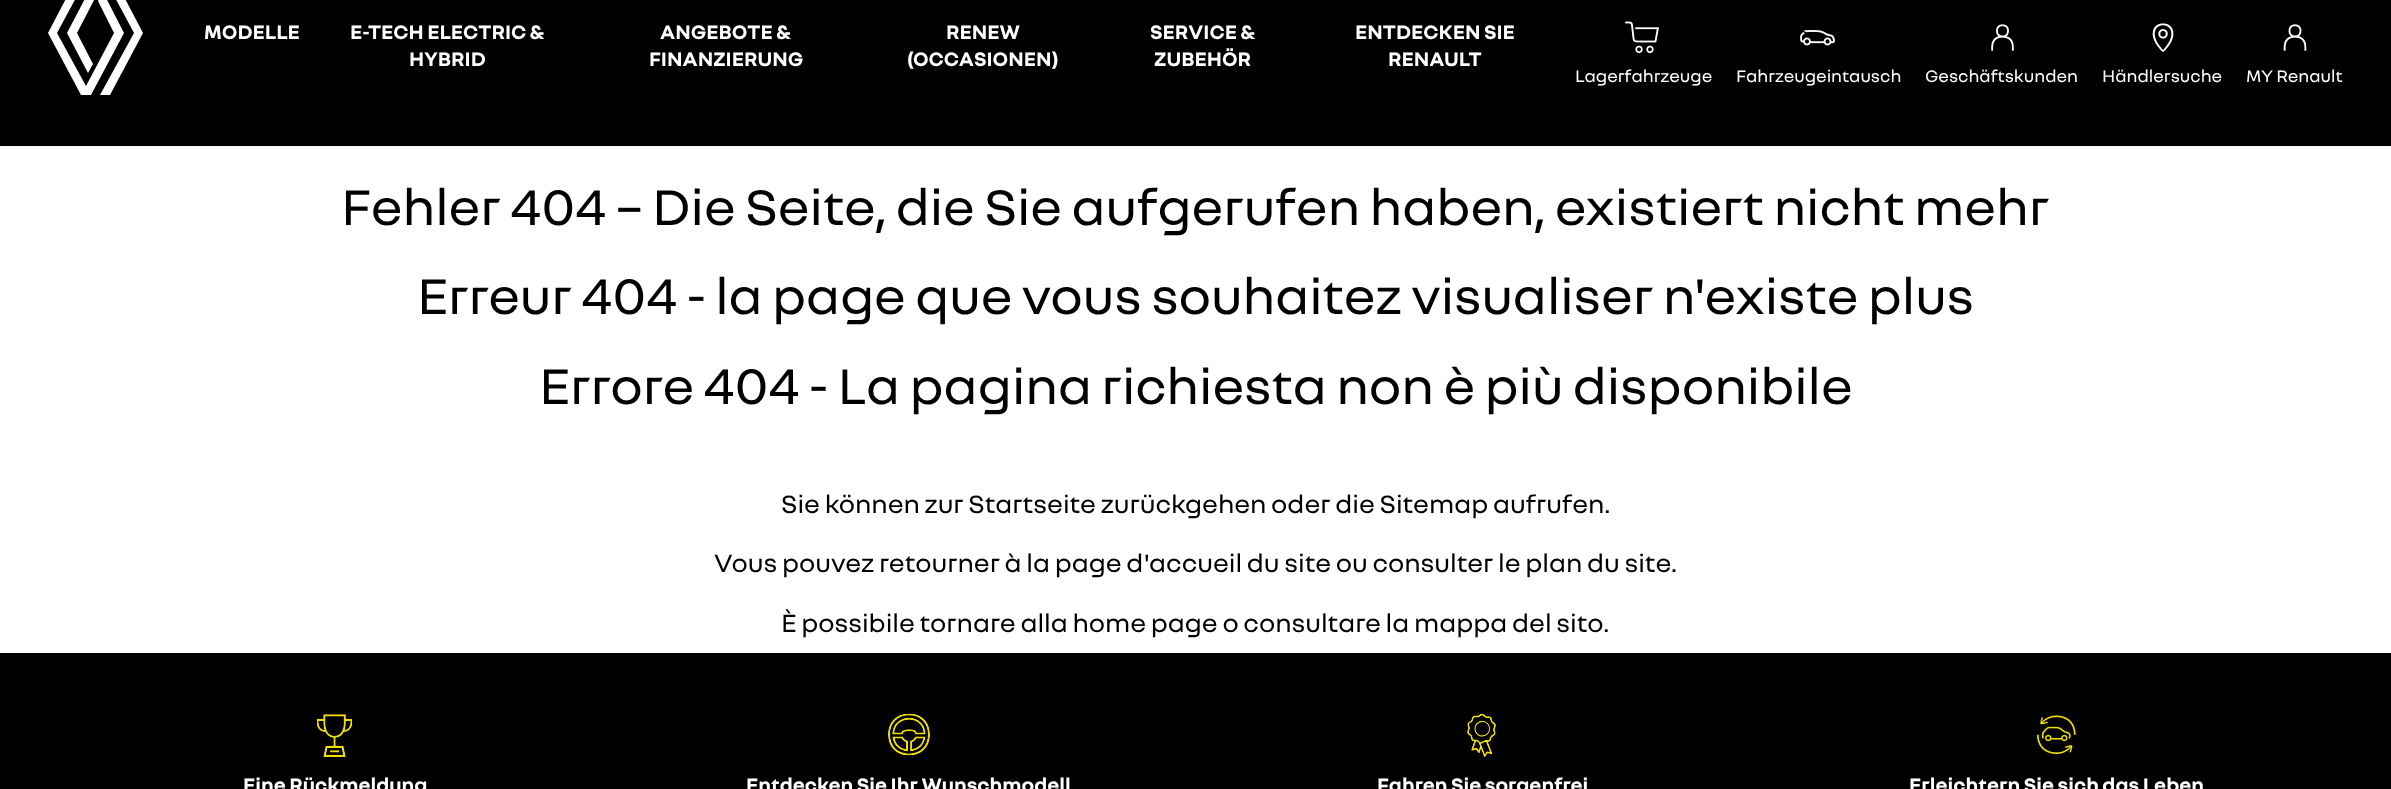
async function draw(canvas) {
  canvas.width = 2391
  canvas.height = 789
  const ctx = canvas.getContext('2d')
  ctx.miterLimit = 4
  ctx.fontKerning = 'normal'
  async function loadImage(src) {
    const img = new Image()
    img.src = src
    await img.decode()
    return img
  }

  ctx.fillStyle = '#fff'
  ctx.fillRect(0, 0, 2391, 789)
  ctx.fillStyle = '#0000000d'
  ctx.filter = 'blur(2px)'
  ctx.beginPath()
  ctx.rect(0, -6, 2391, 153)
  ctx.fill()
  ctx.filter = 'none'
  ctx.fillStyle = '#000'
  ctx.fillRect(0, 0, 2391, 146)
  ctx.fillStyle = '#fff'
  ctx.beginPath()
  ctx.moveTo(124, 33)
  ctx.lineTo(91, 95)
  ctx.lineTo(81, 95)
  ctx.lineTo(48, 33)
  ctx.lineTo(81, -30)
  ctx.lineTo(91, -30)
  ctx.lineTo(57, 33)
  ctx.lineTo(86, 86)
  ctx.lineTo(114, 33)
  ctx.lineTo(98, 1)
  ctx.lineTo(103, -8)
  ctx.closePath()
  ctx.moveTo(110, -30)
  ctx.lineTo(100, -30)
  ctx.lineTo(67, 33)
  ctx.lineTo(88, 73)
  ctx.lineTo(93, 64)
  ctx.lineTo(77, 33)
  ctx.lineTo(105, -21)
  ctx.lineTo(134, 33)
  ctx.lineTo(100, 95)
  ctx.lineTo(110, 95)
  ctx.lineTo(143, 33)
  ctx.closePath()
  ctx.fill()
  ctx.font = 'bold 21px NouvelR'
  ctx.fillText('MODELLE', 204, 39)
  ctx.fillText('E-TECH ELECTRIC &', 350, 39)
  ctx.fillText('HYBRID', 409, 66)
  ctx.fillText('ANGEBOTE &', 660, 39)
  ctx.fillText('FINANZIERUNG', 649, 66)
  ctx.fillText('RENEW', 946, 39)
  ctx.fillText('(OCCASIONEN)', 907, 66)
  ctx.fillText('SERVICE &', 1150, 39)
  ctx.fillText('ZUBEHÖR', 1154, 66)
  ctx.fillText('ENTDECKEN SIE', 1355, 39)
  ctx.fillText('RENAULT', 1388, 66)
  ctx.drawImage(await loadImage('image0.png'), 1625, 21, 34, 33)
  ctx.font = '18px NouvelR'
  ctx.fillText('Lagerfahrzeuge', 1575, 82)
  ctx.drawImage(await loadImage('image1.png'), 1800, 30, 35, 16)
  ctx.fillText('Fahrzeugeintausch', 1736, 82)
  ctx.drawImage(await loadImage('image2.png'), 1991, 24, 23, 27)
  ctx.fillText('Geschäftskunden', 1925, 82)
  ctx.drawImage(await loadImage('image3.png'), 2152, 23, 22, 29)
  ctx.fillText('Händlersuche', 2102, 82)
  ctx.drawImage(await loadImage('image4.png'), 2283, 24, 24, 27)
  ctx.fillText('MY Renault', 2246, 82)
  ctx.font = '54px NouvelR'
  ctx.fillStyle = '#000'
  ctx.fillText('Fehler 404 – Die Seite, die Sie aufgerufen haben, existiert nicht mehr', 341, 225)
  ctx.fillText('Erreur 404 - la page que vous souhaitez visualiser n\'existe plus', 417, 314)
  ctx.fillText('Errore 404 - La pagina richiesta non è più disponibile', 539, 404)
  ctx.font = '27px NouvelR'
  ctx.fillText('Sie können zur Startseite zurückgehen oder die Sitemap aufrufen.', 781, 513)
  ctx.fillText('Vous pouvez retourner à la page d\'accueil du site ou consulter le plan du site.', 714, 572)
  ctx.fillText('È possibile tornare alla home page o consultare la mappa del sito.', 781, 632)
  ctx.fillRect(0, 653, 2391, 136)
  ctx.drawImage(await loadImage('image5.png'), 317, 714, 36, 43)
  ctx.font = 'bold 21px NouvelR'
  ctx.fillStyle = '#fff'
  ctx.fillText('Eine Rückmeldung', 243, 792)
  ctx.drawImage(await loadImage('image6.png'), 888, 714, 42, 42)
  ctx.fillText('Entdecken Sie Ihr Wunschmodell', 746, 792)
  ctx.drawImage(await loadImage('image7.png'), 1467, 714, 29, 43)
  ctx.fillText('Fahren Sie sorgenfrei', 1377, 792)
  ctx.drawImage(await loadImage('image8.png'), 2037, 715, 39, 39)
  ctx.fillText('Erleichtern Sie sich das Leben', 1909, 792)
}

draw(document.querySelector('canvas'))
